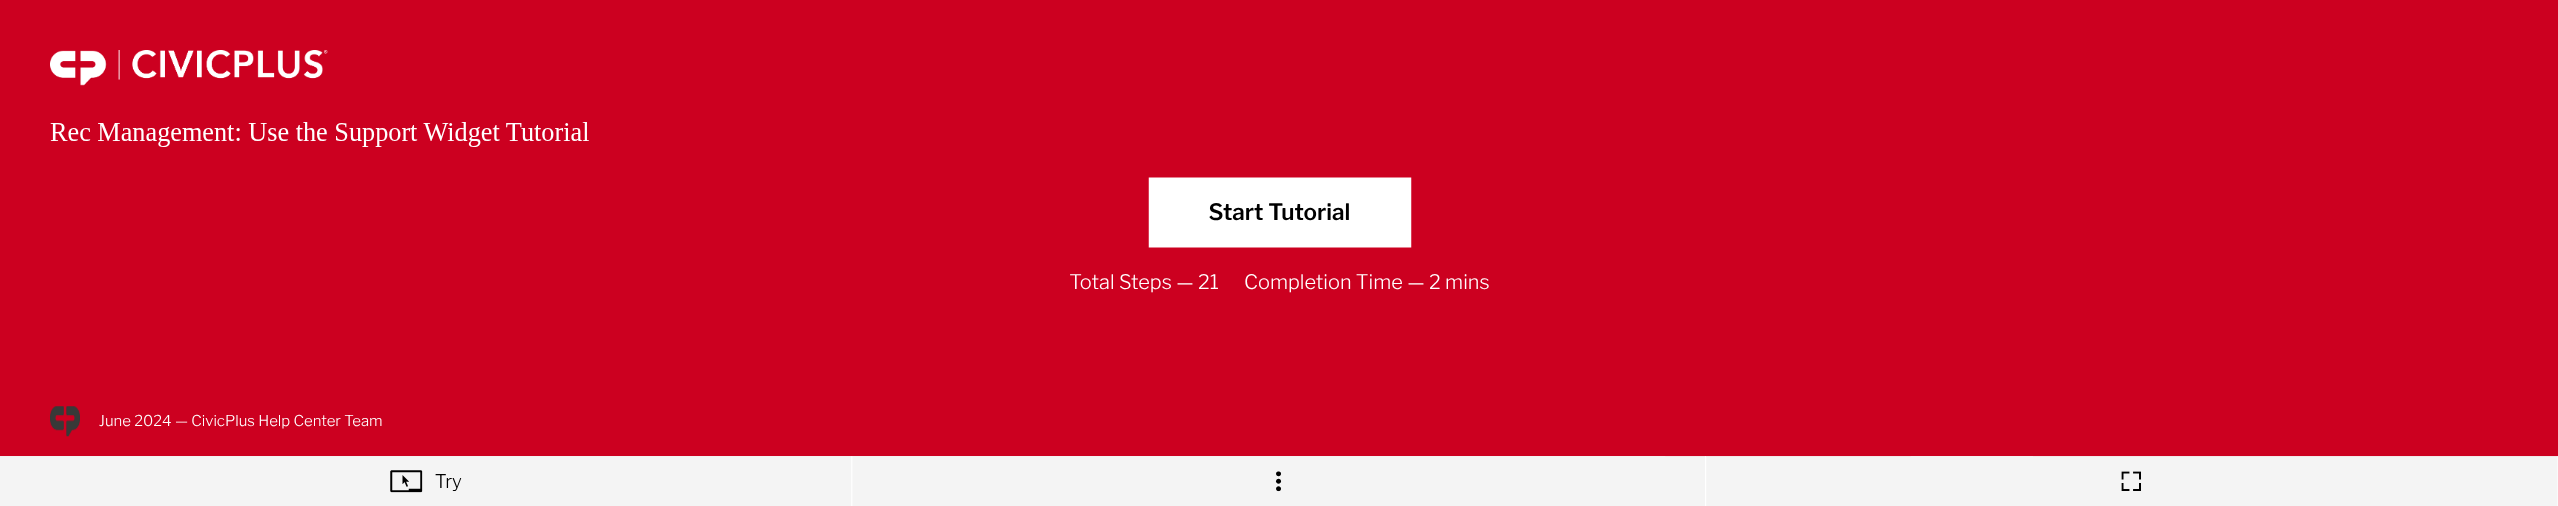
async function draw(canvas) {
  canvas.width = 2558
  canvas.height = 506
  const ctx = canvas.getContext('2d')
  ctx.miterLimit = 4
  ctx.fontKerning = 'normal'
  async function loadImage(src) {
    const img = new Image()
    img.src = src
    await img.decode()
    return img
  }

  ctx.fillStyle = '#fff'
  ctx.fillRect(0, 0, 2558, 506)
  ctx.drawImage(await loadImage('image0.png'), 0, 0, 2558, 506)
}

draw(document.querySelector('canvas'))
